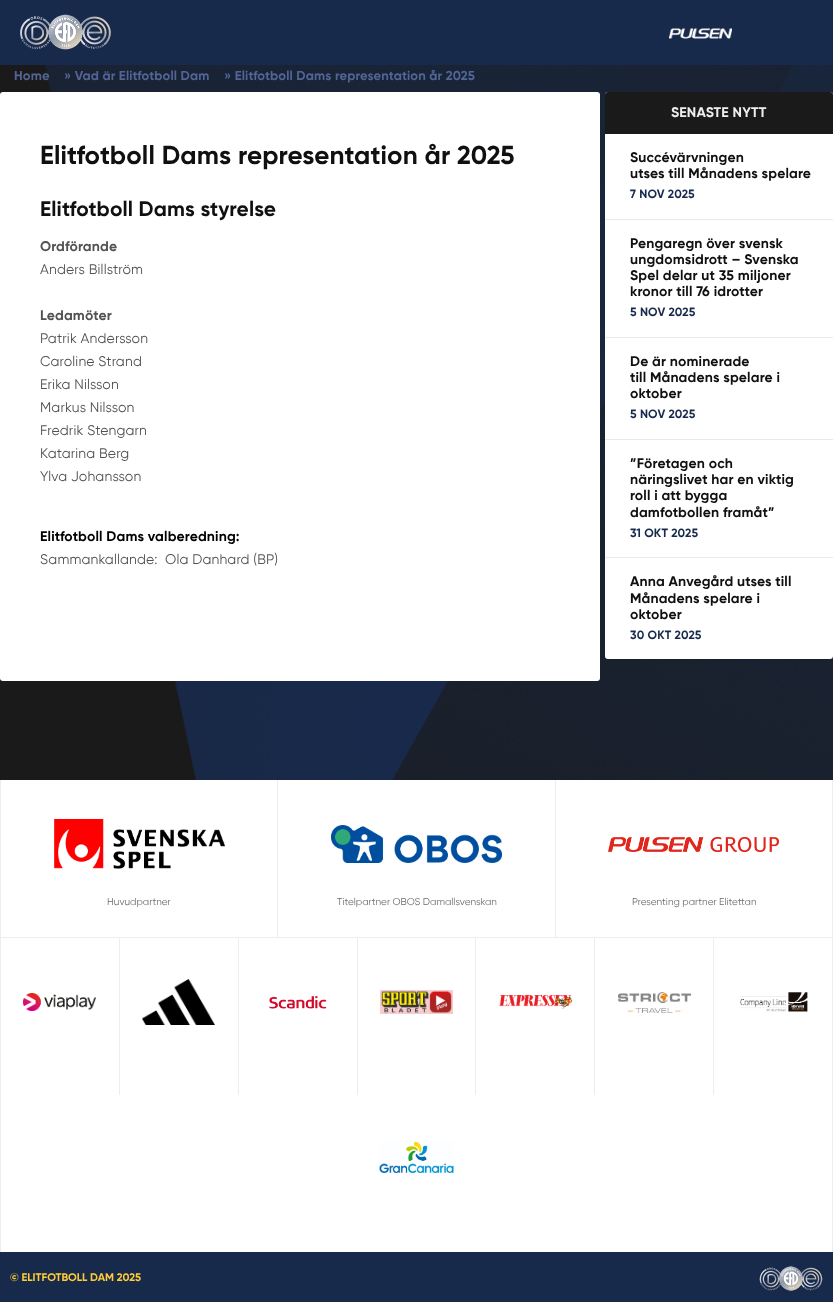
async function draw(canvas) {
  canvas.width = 833
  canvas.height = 1302
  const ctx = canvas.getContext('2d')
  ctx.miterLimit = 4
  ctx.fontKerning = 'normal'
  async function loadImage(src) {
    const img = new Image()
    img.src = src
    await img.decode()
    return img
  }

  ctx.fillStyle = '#fff'
  ctx.fillRect(0, 0, 833, 1302)
  ctx.drawImage(await loadImage('image0.png'), 0, 65, 833, 715)
  ctx.fillStyle = '#182a4c'
  ctx.fillRect(0, 0, 833, 65)
  ctx.drawImage(await loadImage('image1.png'), 20, 14, 91, 36)
  ctx.drawImage(await loadImage('image2.png'), 669, 28, 63, 11)
  ctx.letterSpacing = '0.15px'
  ctx.font = 'bold 13px Gilroy'
  ctx.fillStyle = '#526595'
  ctx.fillText('Home', 14, 80)
  ctx.fillText('» Vad är Elitfotboll Dam', 64, 80)
  ctx.fillText('» Elitfotboll Dams representation år 2025', 224, 80)
  ctx.fillStyle = '#fff'
  ctx.beginPath()
  ctx.roundRect(0, 92, 600, 589, 3)
  ctx.fill()
  ctx.font = 'bold 26px Gilroy'
  ctx.fillStyle = '#101010'
  ctx.fillText('Elitfotboll Dams representation år 2025', 40, 164)
  ctx.font = 'bold 21px Gilroy'
  ctx.fillText('Elitfotboll Dams styrelse', 40, 216)
  ctx.font = 'bold 14px Gilroy'
  ctx.fillStyle = '#525252'
  ctx.fillText('Ordförande', 40, 251)
  ctx.font = '14px Gilroy'
  ctx.fillText('Anders Billström', 40, 274)
  ctx.font = 'bold 14px Gilroy'
  ctx.fillText('Ledamöter', 40, 320)
  ctx.font = '14px Gilroy'
  ctx.fillText('Patrik Andersson', 40, 343)
  ctx.fillText('Caroline Strand', 40, 366)
  ctx.fillText('Erika Nilsson', 40, 389)
  ctx.fillText('Markus Nilsson', 40, 412)
  ctx.fillText('Fredrik Stengarn', 40, 435)
  ctx.fillText('Katarina Berg', 40, 458)
  ctx.fillText('Ylva Johansson', 40, 481)
  ctx.font = 'bold 14px Gilroy'
  ctx.fillStyle = '#000'
  ctx.fillText('Elitfotboll Dams valberedning:', 40, 541)
  ctx.font = '14px Gilroy'
  ctx.fillStyle = '#525252'
  ctx.fillText('Sammankallande:  Ola Danhard (BP)', 40, 564)
  ctx.fillStyle = '#fff'
  ctx.beginPath()
  ctx.roundRect(605, 92, 228, 567, 3)
  ctx.fill()
  ctx.fillStyle = '#1a1a1a'
  ctx.beginPath()
  ctx.roundRect(605, 92, 228, 42, [3, 3, 0, 0])
  ctx.fill()
  ctx.font = 'bold 14px Gilroy'
  ctx.fillStyle = '#eee'
  ctx.fillText('SENASTE NYTT', 671, 117)
  ctx.fillStyle = '#eaeaea'
  ctx.fillRect(605, 219, 228, 1)
  ctx.fillStyle = '#101010'
  ctx.fillText('Succévärvningen', 630, 162)
  ctx.fillText('utses till Månadens spelare', 630, 178)
  ctx.font = 'bold 12px Gilroy'
  ctx.fillStyle = '#182a4c'
  ctx.fillText('7 NOV 2025', 630, 198)
  ctx.fillStyle = '#eaeaea'
  ctx.fillRect(605, 337, 228, 1)
  ctx.font = 'bold 14px Gilroy'
  ctx.fillStyle = '#101010'
  ctx.fillText('Pengaregn över svensk', 630, 248)
  ctx.fillText('ungdomsidrott – Svenska', 630, 264)
  ctx.fillText('Spel delar ut 35 miljoner', 630, 280)
  ctx.fillText('kronor till 76 idrotter', 630, 296)
  ctx.font = 'bold 12px Gilroy'
  ctx.fillStyle = '#182a4c'
  ctx.fillText('5 NOV 2025', 630, 316)
  ctx.fillStyle = '#eaeaea'
  ctx.fillRect(605, 439, 228, 1)
  ctx.font = 'bold 14px Gilroy'
  ctx.fillStyle = '#101010'
  ctx.fillText('De är nominerade', 630, 366)
  ctx.fillText('till Månadens spelare i', 630, 382)
  ctx.fillText('oktober', 630, 398)
  ctx.font = 'bold 12px Gilroy'
  ctx.fillStyle = '#182a4c'
  ctx.fillText('5 NOV 2025', 630, 418)
  ctx.fillStyle = '#eaeaea'
  ctx.fillRect(605, 557, 228, 1)
  ctx.font = 'bold 14px Gilroy'
  ctx.fillStyle = '#101010'
  ctx.fillText('”Företagen och', 630, 468)
  ctx.fillText('näringslivet har en viktig', 630, 484)
  ctx.fillText('roll i att bygga', 630, 500)
  ctx.fillText('damfotbollen framåt”', 630, 517)
  ctx.font = 'bold 12px Gilroy'
  ctx.fillStyle = '#182a4c'
  ctx.fillText('31 OKT 2025', 630, 537)
  ctx.font = 'bold 14px Gilroy'
  ctx.fillStyle = '#101010'
  ctx.fillText('Anna Anvegård utses till', 630, 586)
  ctx.fillText('Månadens spelare i', 630, 603)
  ctx.fillText('oktober', 630, 619)
  ctx.font = 'bold 12px Gilroy'
  ctx.fillStyle = '#182a4c'
  ctx.fillText('30 OKT 2025', 630, 639)
  ctx.fillStyle = '#ededed'
  ctx.fillRect(0, 937, 833, 1)
  ctx.fillRect(0, 780, 1, 157)
  ctx.drawImage(await loadImage('image3.png'), 54, 819, 171, 50)
  ctx.letterSpacing = '0px'
  ctx.font = '10px Gilroy'
  ctx.fillStyle = '#6c6c6c'
  ctx.fillText('Huvudpartner', 107, 905)
  ctx.fillStyle = '#ededed'
  ctx.fillRect(277, 780, 1, 157)
  ctx.drawImage(await loadImage('image4.png'), 331, 825, 171, 38)
  ctx.fillStyle = '#6c6c6c'
  ctx.fillText('Titelpartner OBOS Damallsvenskan', 337, 905)
  ctx.fillStyle = '#ededed'
  ctx.fillRect(832, 780, 1, 157)
  ctx.fillRect(555, 780, 1, 157)
  ctx.drawImage(await loadImage('image5.png'), 608, 837, 171, 15)
  ctx.fillStyle = '#6c6c6c'
  ctx.fillText('Presenting partner Elitettan', 632, 905)
  ctx.fillStyle = '#ededed'
  ctx.fillRect(0, 938, 1, 314)
  ctx.drawImage(await loadImage('image6.png'), 23, 993, 73, 18)
  ctx.fillRect(119, 938, 1, 157)
  ctx.drawImage(await loadImage('image7.png'), 142, 979, 73, 46)
  ctx.fillRect(238, 938, 1, 157)
  ctx.drawImage(await loadImage('image8.png'), 269, 996, 58, 13)
  ctx.fillRect(357, 938, 1, 157)
  ctx.drawImage(await loadImage('image9.png'), 380, 990, 73, 24)
  ctx.fillRect(475, 938, 1, 157)
  ctx.drawImage(await loadImage('image10.png'), 499, 995, 73, 14)
  ctx.fillRect(594, 938, 1, 157)
  ctx.drawImage(await loadImage('image11.png'), 618, 992, 73, 21)
  ctx.fillRect(832, 938, 1, 314)
  ctx.fillRect(713, 938, 1, 157)
  ctx.drawImage(await loadImage('image12.png'), 740, 992, 68, 20)
  ctx.drawImage(await loadImage('image13.png'), 379, 1141, 75, 32)
  ctx.fillStyle = '#182a4c'
  ctx.fillRect(0, 1252, 833, 50)
  ctx.font = 'bold 11px Gilroy'
  ctx.fillStyle = '#ffce36'
  ctx.fillText('© ELITFOTBOLL DAM 2025', 10, 1281)
  ctx.drawImage(await loadImage('image14.png'), 759, 1266, 64, 25)
}

draw(document.querySelector('canvas'))
